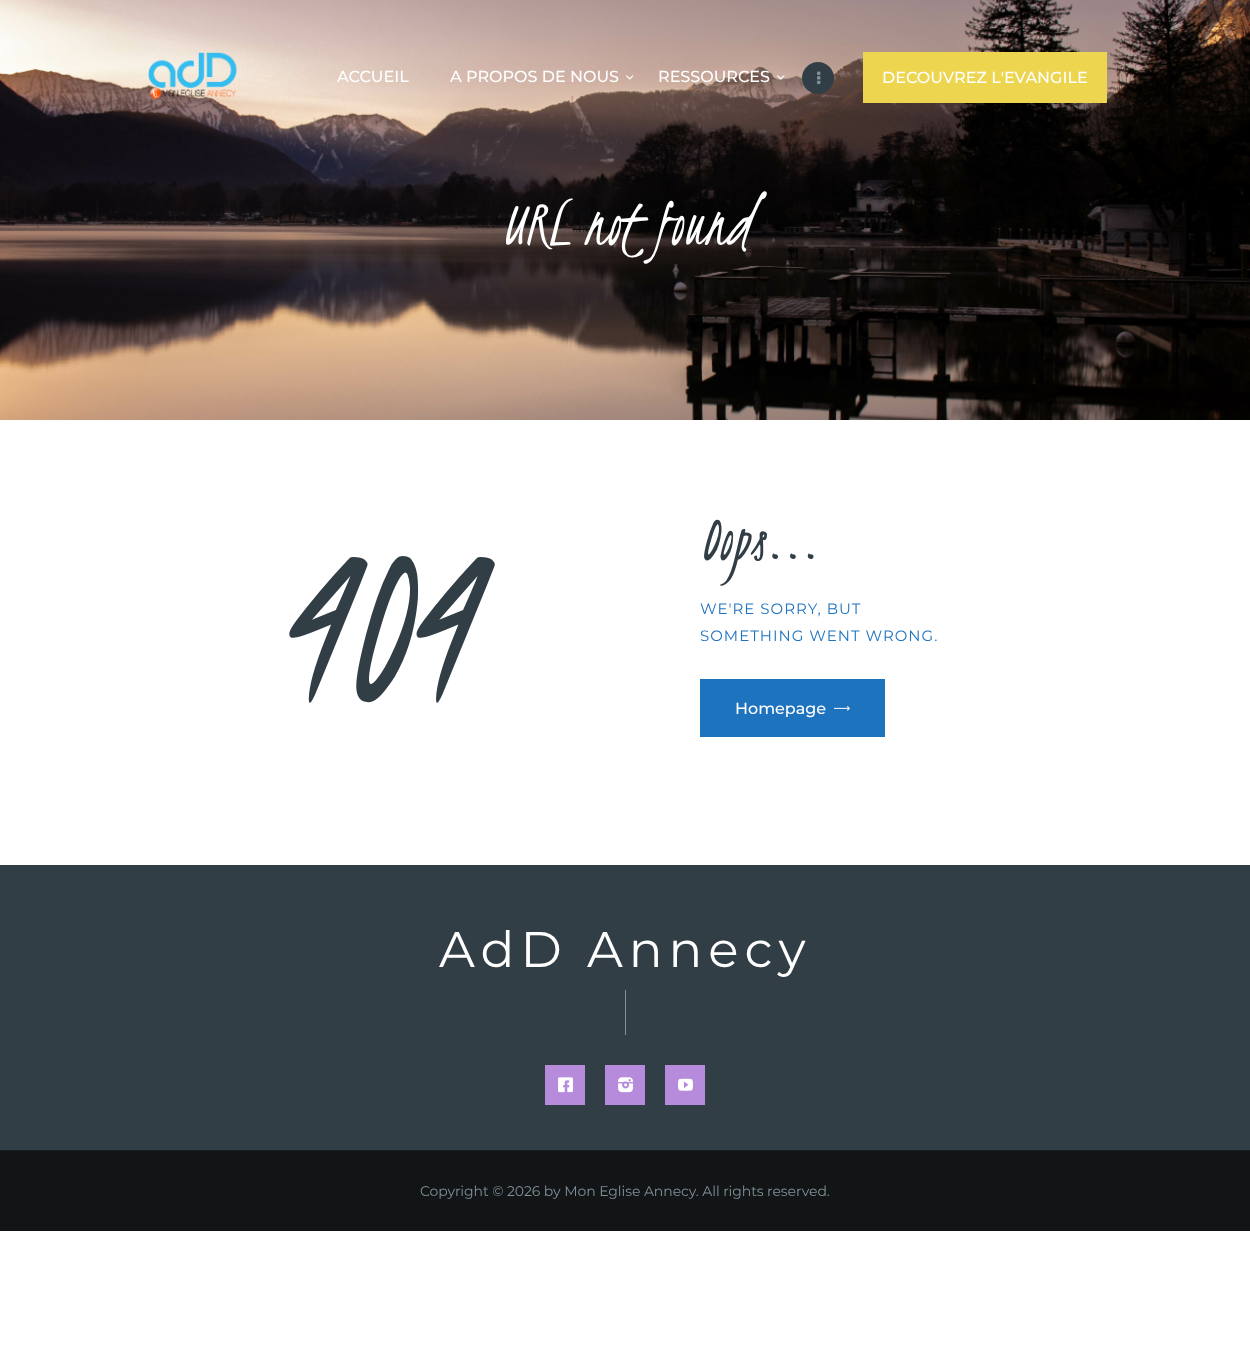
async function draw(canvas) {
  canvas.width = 1250
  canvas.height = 1359
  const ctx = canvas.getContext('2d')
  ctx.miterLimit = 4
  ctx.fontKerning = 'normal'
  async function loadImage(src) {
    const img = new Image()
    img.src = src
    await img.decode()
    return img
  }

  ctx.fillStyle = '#fff'
  ctx.fillRect(0, 0, 1250, 1359)
  ctx.drawImage(await loadImage('image4.png'), 0, 0, 1250, 420)
  ctx.drawImage(await loadImage('image0.png'), 148, 52, 89, 48)
  ctx.font = '500 16px Montserrat'
  ctx.fillText('ACCUEIL', 337, 82)
  ctx.fillText('A PROPOS DE NOUS', 450, 82)
  ctx.drawImage(await loadImage('image1.png'), 626, 75, 8, 5)
  ctx.fillText('RESSOURCES', 658, 82)
  ctx.drawImage(await loadImage('image2.png'), 777, 75, 8, 5)
  ctx.fillStyle = '#323e45'
  ctx.beginPath()
  ctx.arc(818, 78, 16, 0, 2 * Math.PI)
  ctx.fill()
  ctx.drawImage(await loadImage('image3.png'), 817, 71, 4, 14)
  ctx.fillStyle = '#edd550'
  ctx.fillRect(863, 52, 244, 51)
  ctx.fillStyle = '#fff'
  ctx.fillText('DECOUVREZ L\'EVANGILE', 882, 83)
  ctx.font = '70px Kristi'
  ctx.fillText('URL not found', 500, 244)
  ctx.font = '255px Kristi'
  ctx.fillStyle = '#323e45'
  ctx.fillText('404', 286, 697)
  ctx.letterSpacing = '1px'
  ctx.font = '70px Kristi'
  ctx.fillText('Oops...', 700, 559)
  ctx.font = '15px Montserrat'
  ctx.fillStyle = '#1e73be'
  ctx.fillText('WE\'RE SORRY, BUT', 700, 614)
  ctx.fillText('SOMETHING WENT WRONG.', 700, 641)
  ctx.fillRect(700, 679, 185, 58)
  ctx.letterSpacing = '0px'
  ctx.font = '500 16px Montserrat'
  ctx.fillStyle = '#fff'
  ctx.fillText('Homepage', 735, 714)
  ctx.drawImage(await loadImage('image5.png'), 834, 706, 16, 5)
  ctx.fillStyle = '#323e45'
  ctx.fillRect(0, 865, 1250, 285)
  ctx.letterSpacing = '6px'
  ctx.font = '50px Montserrat'
  ctx.fillStyle = '#fff'
  ctx.fillText('AdD Annecy', 439, 967)
  ctx.fillStyle = '#7f919b'
  ctx.fillRect(625, 990, 1, 45)
  ctx.fillStyle = '#b68bdb'
  ctx.fillRect(545, 1065, 40, 40)
  ctx.drawImage(await loadImage('image6.png'), 558, 1077, 15, 16)
  ctx.fillRect(605, 1065, 40, 40)
  ctx.drawImage(await loadImage('image7.png'), 618, 1077, 15, 16)
  ctx.fillRect(665, 1065, 40, 40)
  ctx.drawImage(await loadImage('image8.png'), 678, 1078, 15, 13)
  ctx.fillStyle = '#121415'
  ctx.fillRect(0, 1151, 1250, 80)
  ctx.fillStyle = '#1c1f20'
  ctx.fillRect(0, 1150, 1250, 1)
  ctx.letterSpacing = '-0.08px'
  ctx.font = '14px Montserrat'
  ctx.fillStyle = '#7f919b'
  ctx.fillText('Copyright © 2026 by Mon Eglise Annecy. All rights reserved.', 420, 1196)
}

draw(document.querySelector('canvas'))
